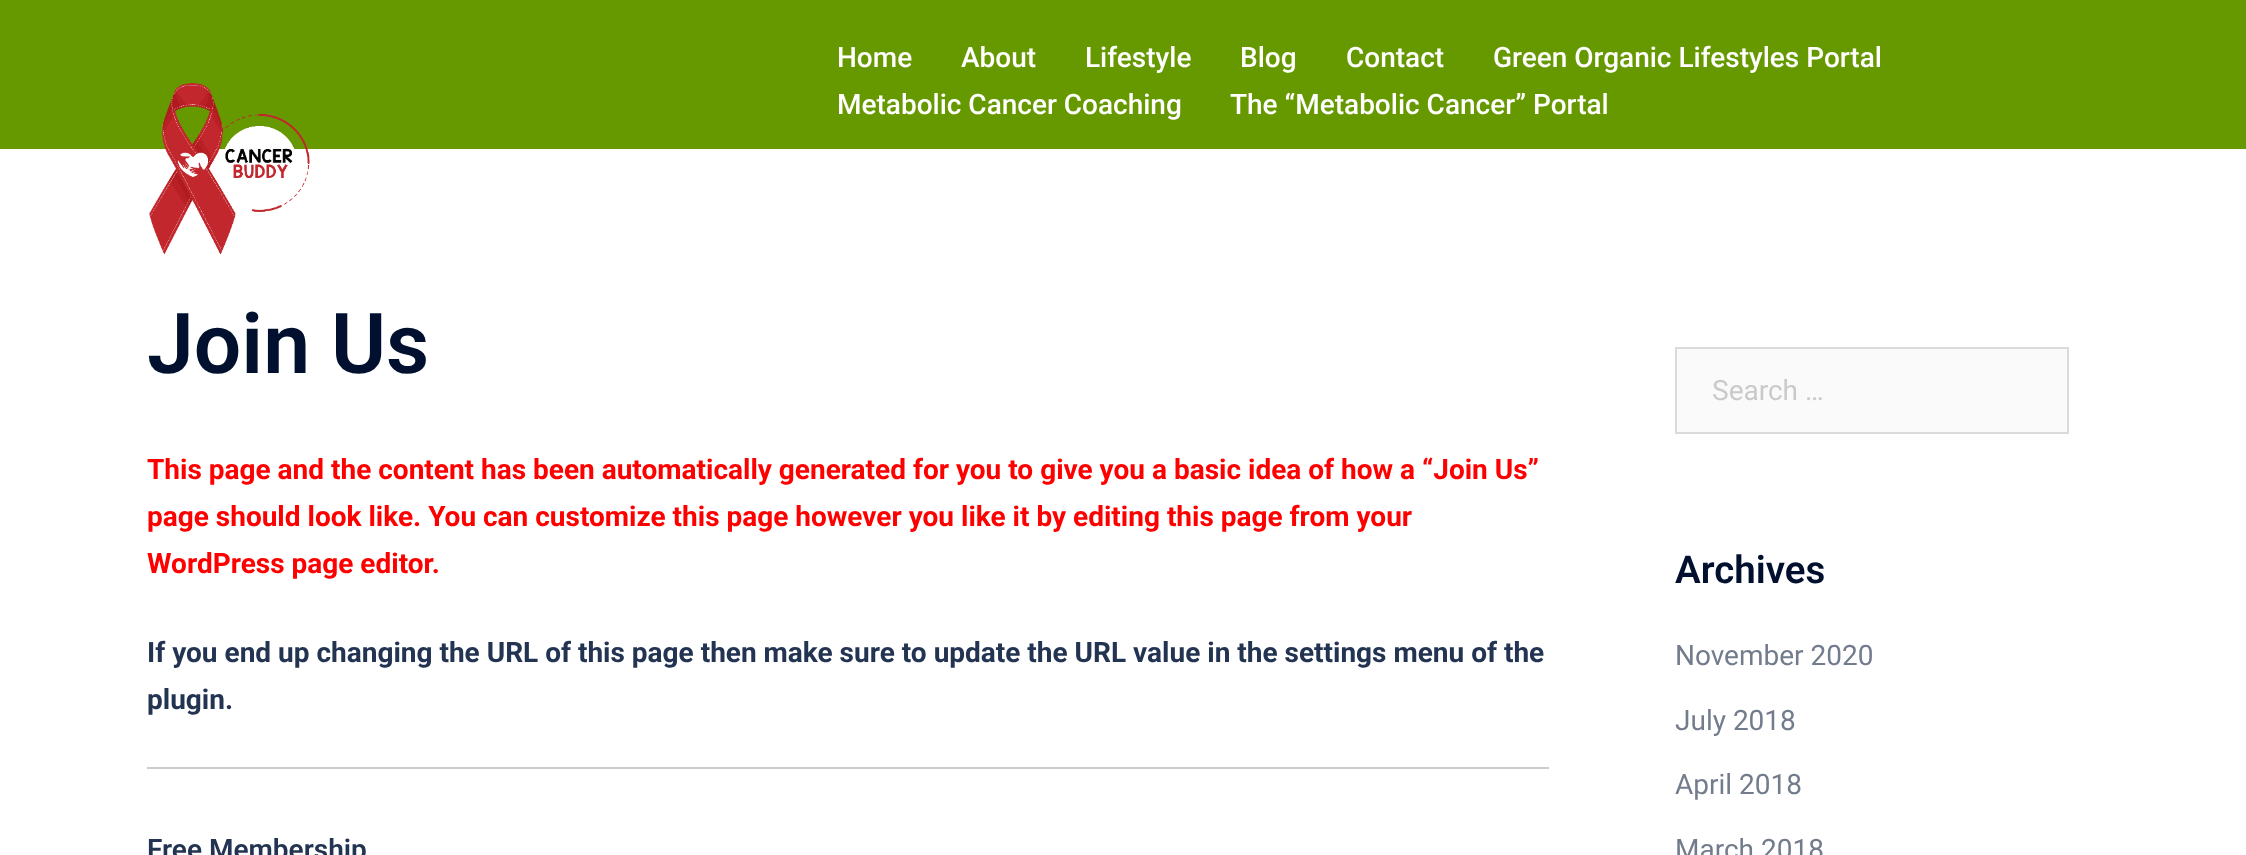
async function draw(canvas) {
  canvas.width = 2246
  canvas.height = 855
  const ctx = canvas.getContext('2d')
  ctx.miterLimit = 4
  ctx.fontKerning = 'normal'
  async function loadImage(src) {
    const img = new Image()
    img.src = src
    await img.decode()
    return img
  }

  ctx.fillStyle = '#fff'
  ctx.fillRect(0, 0, 2246, 855)
  ctx.fillStyle = '#690'
  ctx.fillRect(0, 0, 2246, 149)
  ctx.drawImage(await loadImage('image0.png'), 149, 83, 161, 172)
  ctx.font = '500 28px Roboto'
  ctx.fillStyle = '#fff'
  ctx.fillText('Home', 837, 67)
  ctx.fillText('About', 961, 67)
  ctx.fillText('Lifestyle', 1085, 67)
  ctx.fillText('Blog', 1240, 67)
  ctx.fillText('Contact', 1346, 67)
  ctx.fillText('Green Organic Lifestyles Portal', 1493, 67)
  ctx.fillText('Metabolic Cancer Coaching', 837, 114)
  ctx.fillText('The “Metabolic Cancer” Portal', 1230, 114)
  ctx.font = '600 84px Roboto'
  ctx.fillStyle = '#00102e'
  ctx.fillText('Join Us', 147, 373)
  ctx.font = 'bold 28px Roboto'
  ctx.fillStyle = '#f00'
  ctx.fillText('This page and the content has been automatically generated for you to give you a basic idea of how a “Join Us”', 147, 479)
  ctx.fillText('page should look like. You can customize this page however you like it by editing this page from your', 147, 526)
  ctx.fillText('WordPress page editor.', 147, 573)
  ctx.fillStyle = '#233452'
  ctx.fillText('If you end up changing the URL of this page then make sure to update the URL value in the settings menu of the', 147, 662)
  ctx.fillText('plugin.', 147, 709)
  ctx.fillStyle = '#ccc'
  ctx.fillRect(147, 767, 1402, 2)
  ctx.font = '600 28px Roboto'
  ctx.fillStyle = '#233452'
  ctx.fillText('Free Membership', 147, 859)
  ctx.fillStyle = '#fafafa'
  ctx.beginPath()
  ctx.rect(1676, 348, 392, 85)
  ctx.fill()
  ctx.strokeStyle = '#dbdbdb'
  ctx.lineWidth = 2
  ctx.stroke()
  ctx.font = '28px Roboto'
  ctx.fillStyle = '#cacaca'
  ctx.fillText('Search …', 1712, 400)
  ctx.font = '600 38.5px Roboto'
  ctx.fillStyle = '#00102e'
  ctx.fillText('Archives', 1675, 583)
  ctx.font = '28px Roboto'
  ctx.fillStyle = '#737c8c'
  ctx.fillText('November 2020', 1675, 665)
  ctx.fillText('July 2018', 1675, 730)
  ctx.fillText('April 2018', 1675, 794)
  ctx.fillText('March 2018', 1675, 859)
}

draw(document.querySelector('canvas'))
